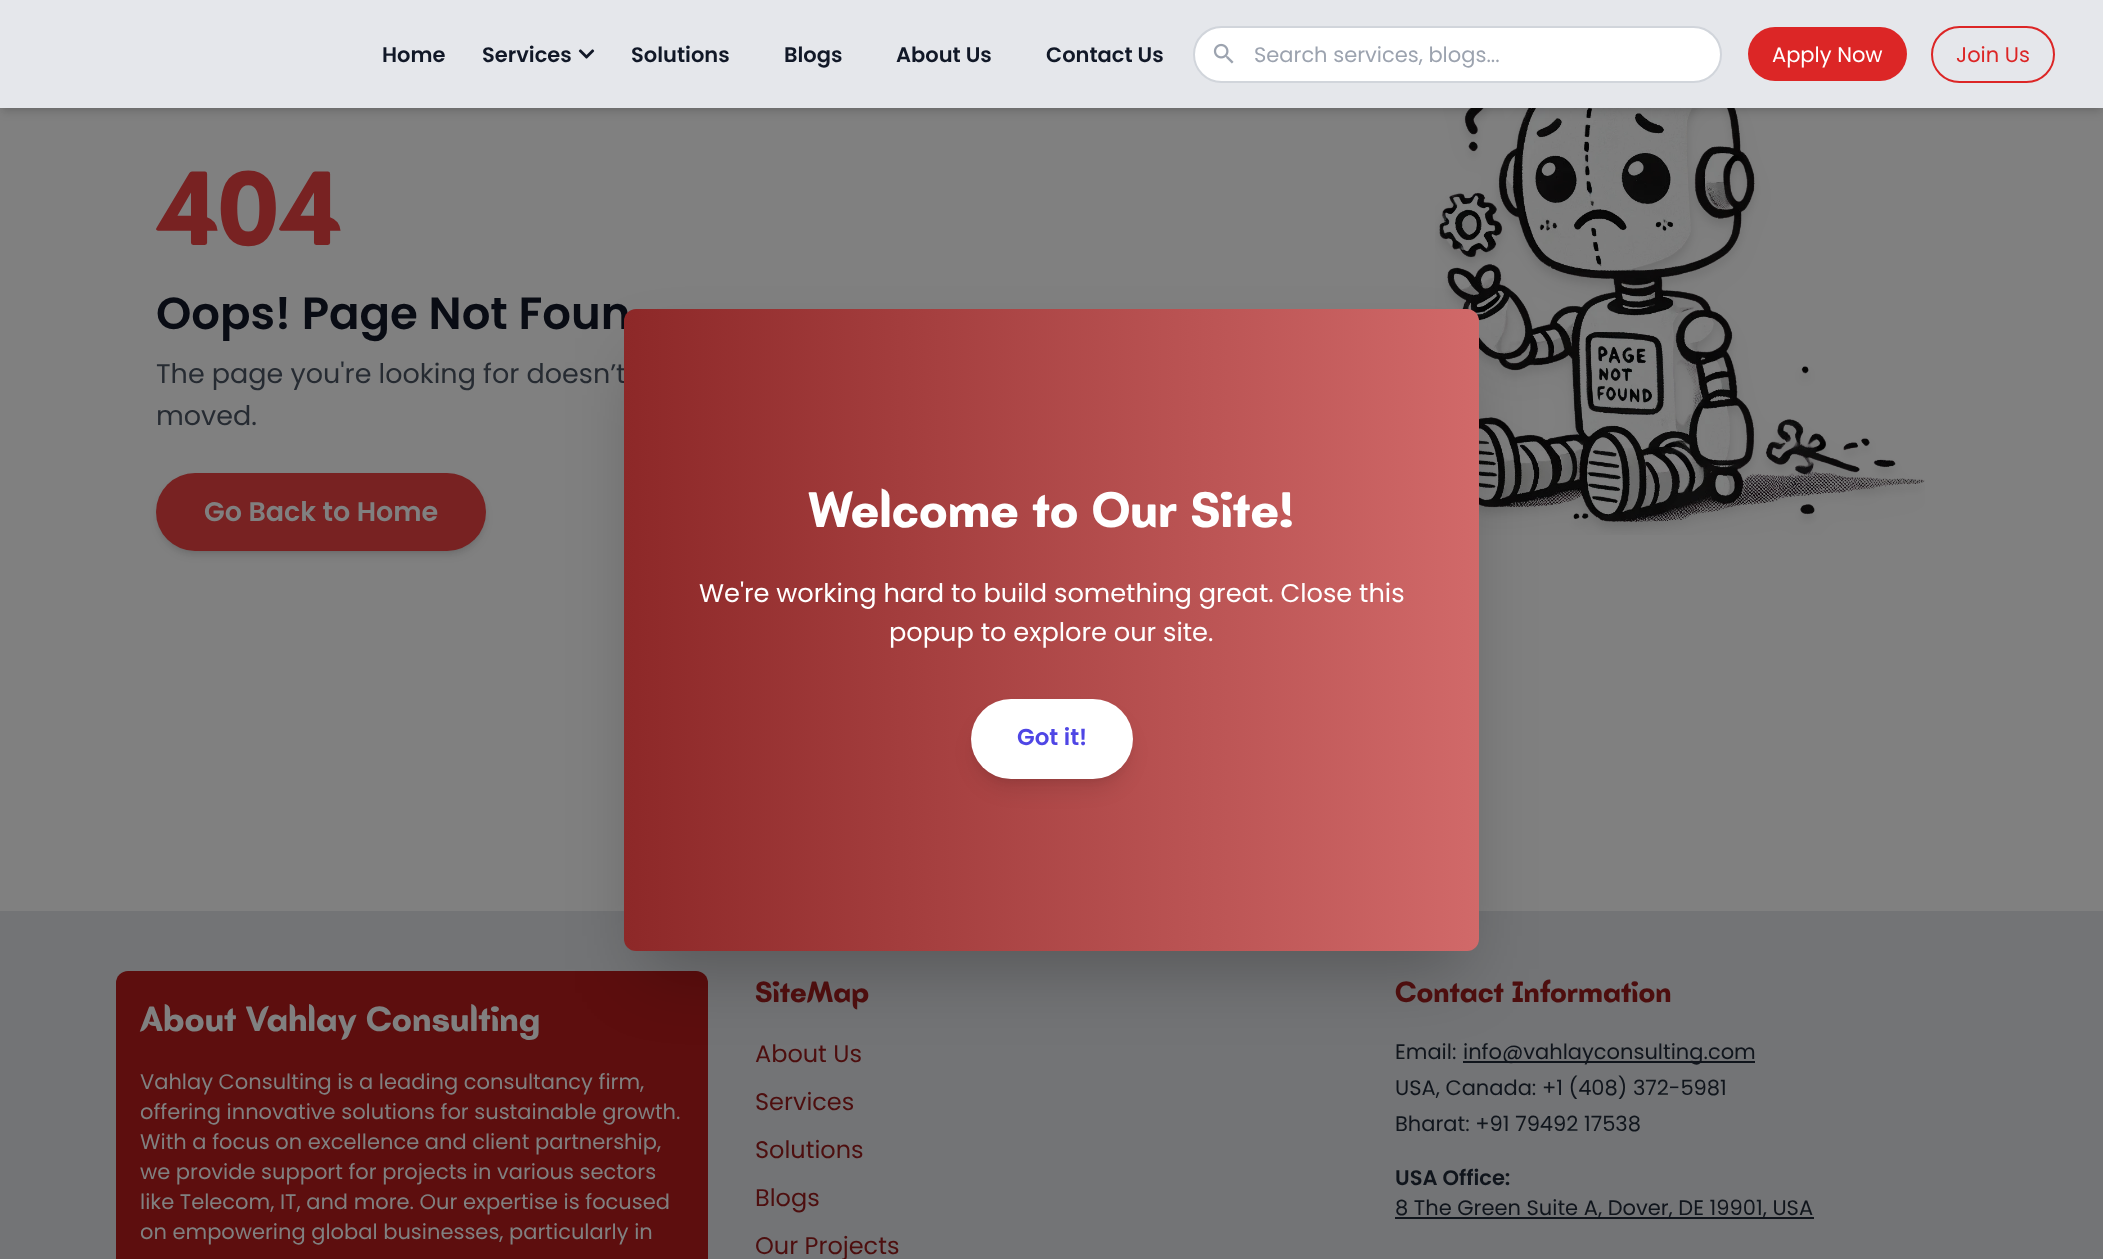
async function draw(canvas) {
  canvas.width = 2103
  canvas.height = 1259
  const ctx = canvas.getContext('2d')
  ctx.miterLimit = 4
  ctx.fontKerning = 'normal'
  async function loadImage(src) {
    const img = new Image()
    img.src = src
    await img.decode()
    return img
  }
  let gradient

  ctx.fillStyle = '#808080'
  ctx.fillRect(0, 0, 2103, 1259)
  ctx.drawImage(await loadImage('image2.png'), 1435, 108, 490, 427)
  ctx.fillStyle = '#0000001a'
  ctx.filter = 'blur(3px)'
  ctx.beginPath()
  ctx.rect(3, 6, 2097, 102)
  ctx.fill()
  ctx.filter = 'none'
  ctx.filter = 'blur(4.5px)'
  ctx.beginPath()
  ctx.rect(2, 8, 2100, 105)
  ctx.fill()
  ctx.filter = 'none'
  ctx.fillStyle = '#e5e7eb'
  ctx.fillRect(0, 0, 2103, 108)
  ctx.font = '600 21px Poppins'
  ctx.fillStyle = '#111827'
  ctx.fillText('Home', 382, 62)
  ctx.fillText('Services', 482, 62)
  ctx.drawImage(await loadImage('image0.png'), 578, 49, 17, 10)
  ctx.fillText('Solutions', 631, 62)
  ctx.fillText('Blogs', 784, 62)
  ctx.fillText('About Us', 896, 62)
  ctx.fillText('Contact Us', 1046, 62)
  ctx.fillStyle = '#fff'
  ctx.beginPath()
  ctx.roundRect(1194, 27, 527, 55, 27.5)
  ctx.fill()
  ctx.strokeStyle = '#d1d5db'
  ctx.lineWidth = 2
  ctx.stroke()
  ctx.drawImage(await loadImage('image1.png'), 1213, 43, 21, 21)
  ctx.font = '21px Poppins'
  ctx.fillStyle = '#9ca3af'
  ctx.fillText('Search services, blogs...', 1254, 62)
  ctx.fillStyle = '#dc2626'
  ctx.beginPath()
  ctx.roundRect(1748, 27, 159, 54, 27)
  ctx.fill()
  ctx.fillStyle = '#fff'
  ctx.fillText('Apply Now', 1772, 62)
  ctx.beginPath()
  ctx.roundRect(1932, 27, 122, 55, 27.5)
  ctx.strokeStyle = '#dc2626'
  ctx.stroke()
  ctx.fillStyle = '#dc2626'
  ctx.fillText('Join Us', 1956, 62)
  ctx.font = 'bold 108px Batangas'
  ctx.fillStyle = '#782222'
  ctx.fillText('404', 156, 245)
  ctx.font = '600 45px Poppins'
  ctx.fillStyle = '#090c14'
  ctx.fillText('Oops! Page Not Foun', 156, 329)
  ctx.font = '27px Poppins'
  ctx.fillStyle = '#262b32'
  ctx.fillText('The page you\'re looking for doesn’t', 156, 383)
  ctx.fillText('moved.', 156, 425)
  ctx.fillStyle = '#0000001a'
  ctx.filter = 'blur(3px)'
  ctx.beginPath()
  ctx.roundRect(159, 479, 324, 72, 36)
  ctx.fill()
  ctx.filter = 'none'
  ctx.filter = 'blur(4.5px)'
  ctx.beginPath()
  ctx.roundRect(158, 480, 327, 75, 37.5)
  ctx.fill()
  ctx.filter = 'none'
  ctx.fillStyle = '#782222'
  ctx.beginPath()
  ctx.roundRect(156, 473, 330, 78, 39)
  ctx.fill()
  ctx.font = '600 27px Poppins'
  ctx.fillStyle = '#808080'
  ctx.fillText('Go Back to Home', 204, 521)
  ctx.fillStyle = '#737476'
  ctx.fillRect(0, 911, 2103, 348)
  ctx.fillStyle = '#5d0e0e'
  ctx.beginPath()
  ctx.roundRect(116, 971, 592, 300, 12)
  ctx.fill()
  ctx.fillStyle = '#10151c'
  ctx.fillRect(1463, 1061, 292, 2)
  ctx.fillStyle = '#00000040'
  ctx.filter = 'blur(35.5px)'
  ctx.beginPath()
  ctx.rect(641, 362, 822, 607)
  ctx.fill()
  ctx.filter = 'none'
  gradient = ctx.createLinearGradient(624, 630, 1479, 630)
  gradient.addColorStop(0, '#8d2828')
  gradient.addColorStop(1, '#d16969')
  ctx.fillStyle = gradient
  ctx.beginPath()
  ctx.roundRect(624, 309, 855, 642, 12)
  ctx.fill()
  ctx.font = 'bold 51.25px Batangas'
  ctx.fillStyle = '#fff'
  ctx.fillText('Welcome to Our Site!', 808, 527)
  ctx.font = '25.65px Poppins'
  ctx.fillText('We\'re working hard to build something great. Close this', 699, 602)
  ctx.fillText('popup to explore our site.', 889, 641)
  ctx.fillStyle = '#0000001a'
  ctx.filter = 'blur(4.5px)'
  ctx.beginPath()
  ctx.roundRect(977, 710, 150, 69, 34.5)
  ctx.fill()
  ctx.filter = 'none'
  ctx.filter = 'blur(10.5px)'
  ctx.beginPath()
  ctx.roundRect(975, 717, 153, 71, 35.5)
  ctx.fill()
  ctx.filter = 'none'
  ctx.fillStyle = '#fff'
  ctx.beginPath()
  ctx.roundRect(971, 699, 162, 80, 40)
  ctx.fill()
  ctx.font = '600 23px Poppins'
  ctx.fillStyle = '#4f46e5'
  ctx.fillText('Got it!', 1017, 745)
  ctx.font = 'bold 36px Batangas'
  ctx.fillStyle = '#808080'
  ctx.fillText('About Vahlay Consulting', 140, 1031)
  ctx.font = '21px Poppins'
  ctx.fillText('Vahlay Consulting is a leading consultancy firm,', 140, 1089)
  ctx.fillText('offering innovative solutions for sustainable growth.', 140, 1119)
  ctx.fillText('With a focus on excellence and client partnership,', 140, 1149)
  ctx.fillText('we provide support for projects in various sectors', 140, 1179)
  ctx.fillText('like Telecom, IT, and more. Our expertise is focused', 140, 1209)
  ctx.fillText('on empowering global businesses, particularly in', 140, 1239)
  ctx.font = 'bold 30px Batangas'
  ctx.fillStyle = '#4d0e0e'
  ctx.fillText('SiteMap', 755, 1002)
  ctx.font = '24px Poppins'
  ctx.fillText('About Us', 755, 1062)
  ctx.fillText('Services', 755, 1110)
  ctx.fillText('Solutions', 755, 1158)
  ctx.fillText('Blogs', 755, 1206)
  ctx.fillText('Our Projects', 755, 1254)
  ctx.font = 'bold 30px Batangas'
  ctx.fillText('Contact Information', 1395, 1002)
  ctx.font = '21px Poppins'
  ctx.fillStyle = '#10151c'
  ctx.fillText('Email:', 1395, 1059)
  ctx.fillText('info@vahlayconsulting.com', 1463, 1059)
  ctx.fillText('USA, Canada: +1 (408) 372-5981', 1395, 1095)
  ctx.fillText('Bharat: +91 79492 17538', 1395, 1131)
  ctx.font = '600 21px Poppins'
  ctx.fillText('USA Office:', 1395, 1185)
  ctx.fillRect(1395, 1217, 419, 2)
  ctx.font = '21px Poppins'
  ctx.fillText('8 The Green Suite A, Dover, DE 19901, USA', 1395, 1215)
}

draw(document.querySelector('canvas'))
